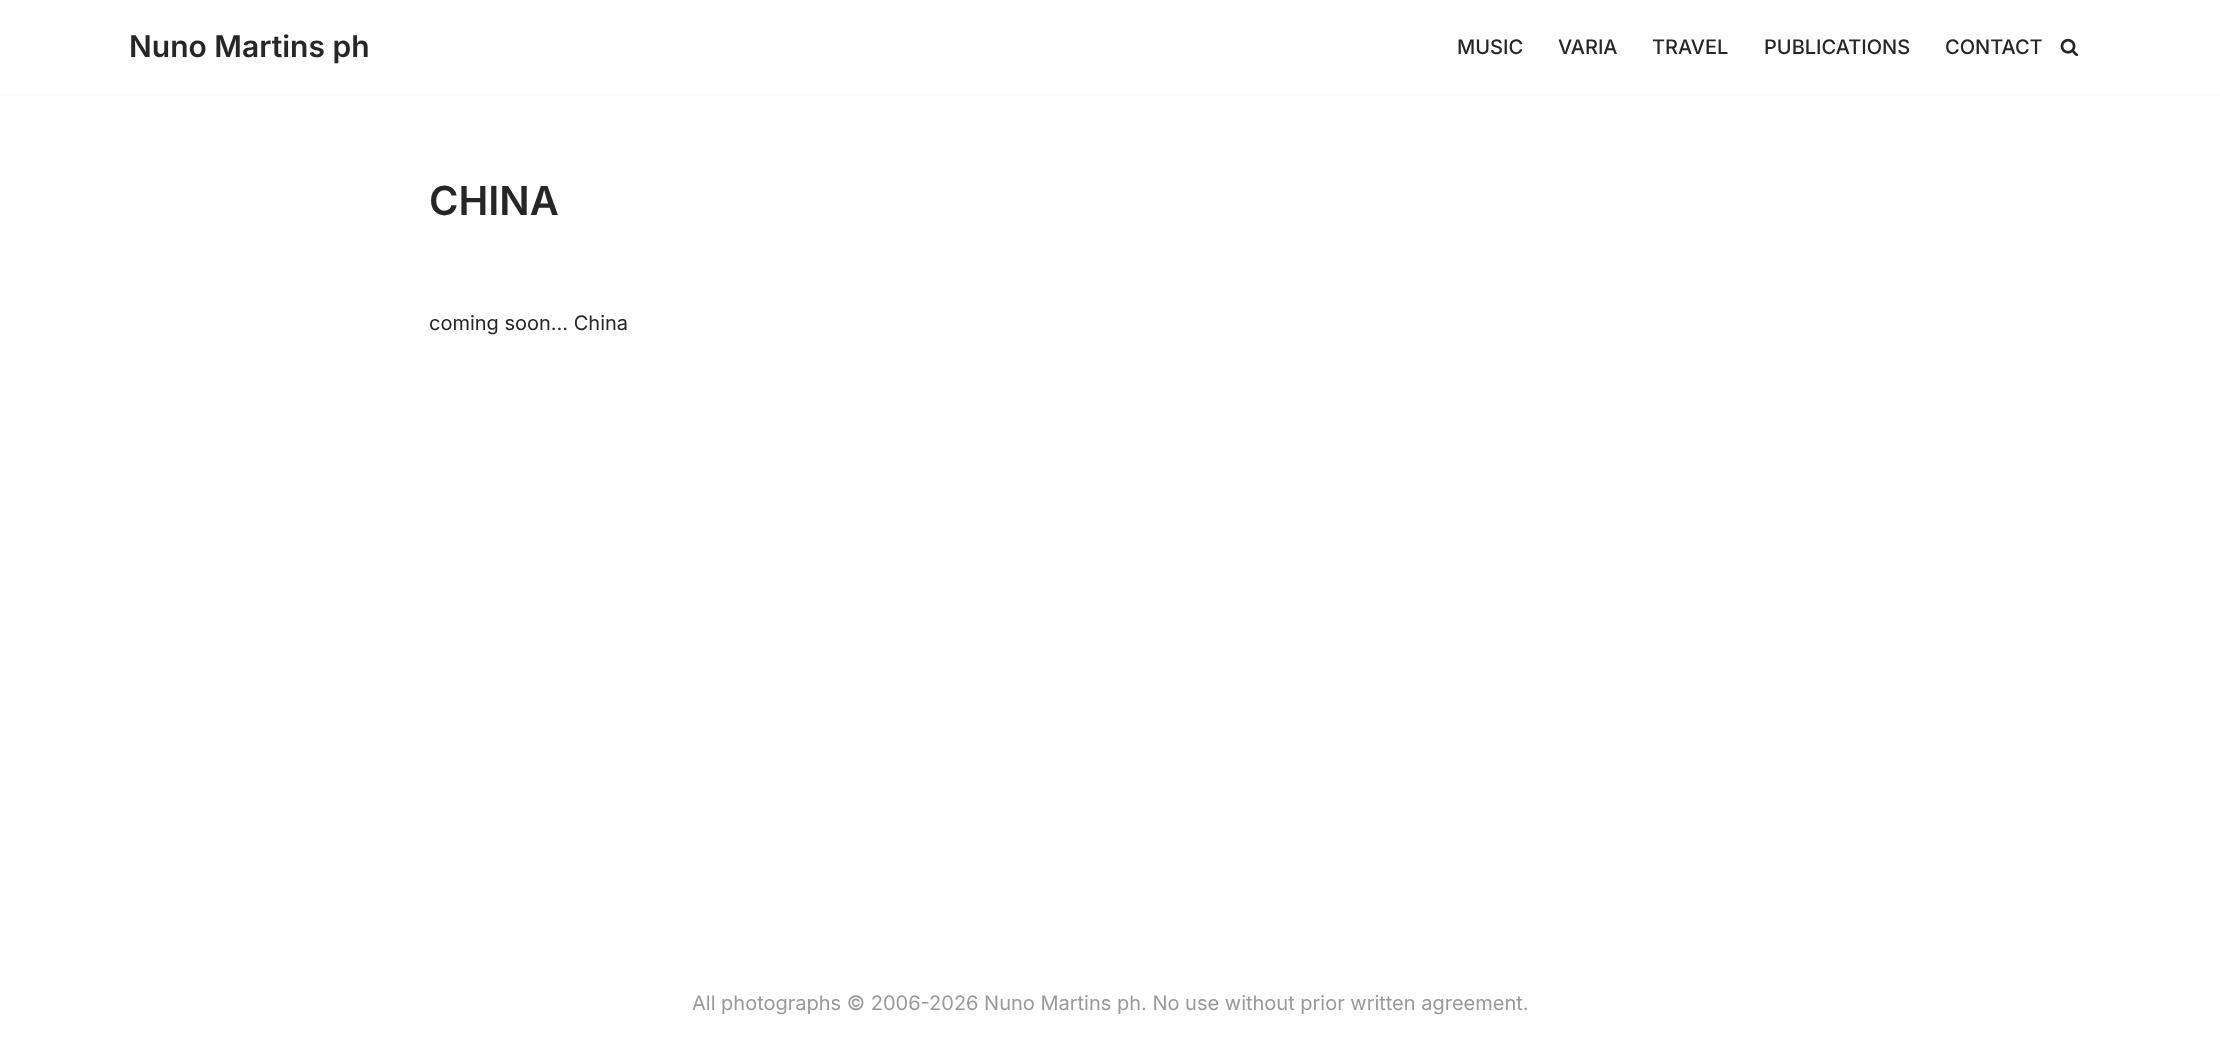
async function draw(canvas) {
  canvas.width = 2220
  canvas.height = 1056
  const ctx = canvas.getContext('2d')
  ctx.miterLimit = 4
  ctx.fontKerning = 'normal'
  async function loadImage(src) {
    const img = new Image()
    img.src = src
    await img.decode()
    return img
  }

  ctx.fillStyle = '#fff'
  ctx.fillRect(0, 0, 2220, 1056)
  ctx.fillStyle = '#0000001a'
  ctx.filter = 'blur(2px)'
  ctx.beginPath()
  ctx.rect(0, -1, 2220, 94)
  ctx.fill()
  ctx.filter = 'none'
  ctx.fillStyle = '#fff'
  ctx.fillRect(0, 0, 2220, 94)
  ctx.font = '600 30px Inter'
  ctx.fillStyle = '#272626'
  ctx.fillText('Nuno Martins ph', 129, 57)
  ctx.font = '500 20px Inter'
  ctx.fillText('MUSIC', 1457, 54)
  ctx.fillText('VARIA', 1558, 54)
  ctx.fillText('TRAVEL', 1652, 54)
  ctx.fillText('PUBLICATIONS', 1764, 54)
  ctx.fillText('CONTACT', 1945, 54)
  ctx.drawImage(await loadImage('image0.png'), 2060, 38, 19, 18)
  ctx.font = '600 40px Inter'
  ctx.fillText('CHINA', 429, 215)
  ctx.font = '20px Inter'
  ctx.fillText('coming soon… China', 429, 330)
  ctx.fillStyle = '#999'
  ctx.fillText('All photographs © 2006-2026 Nuno Martins ph. No use without prior written agreement.', 692, 1010)
}

draw(document.querySelector('canvas'))
